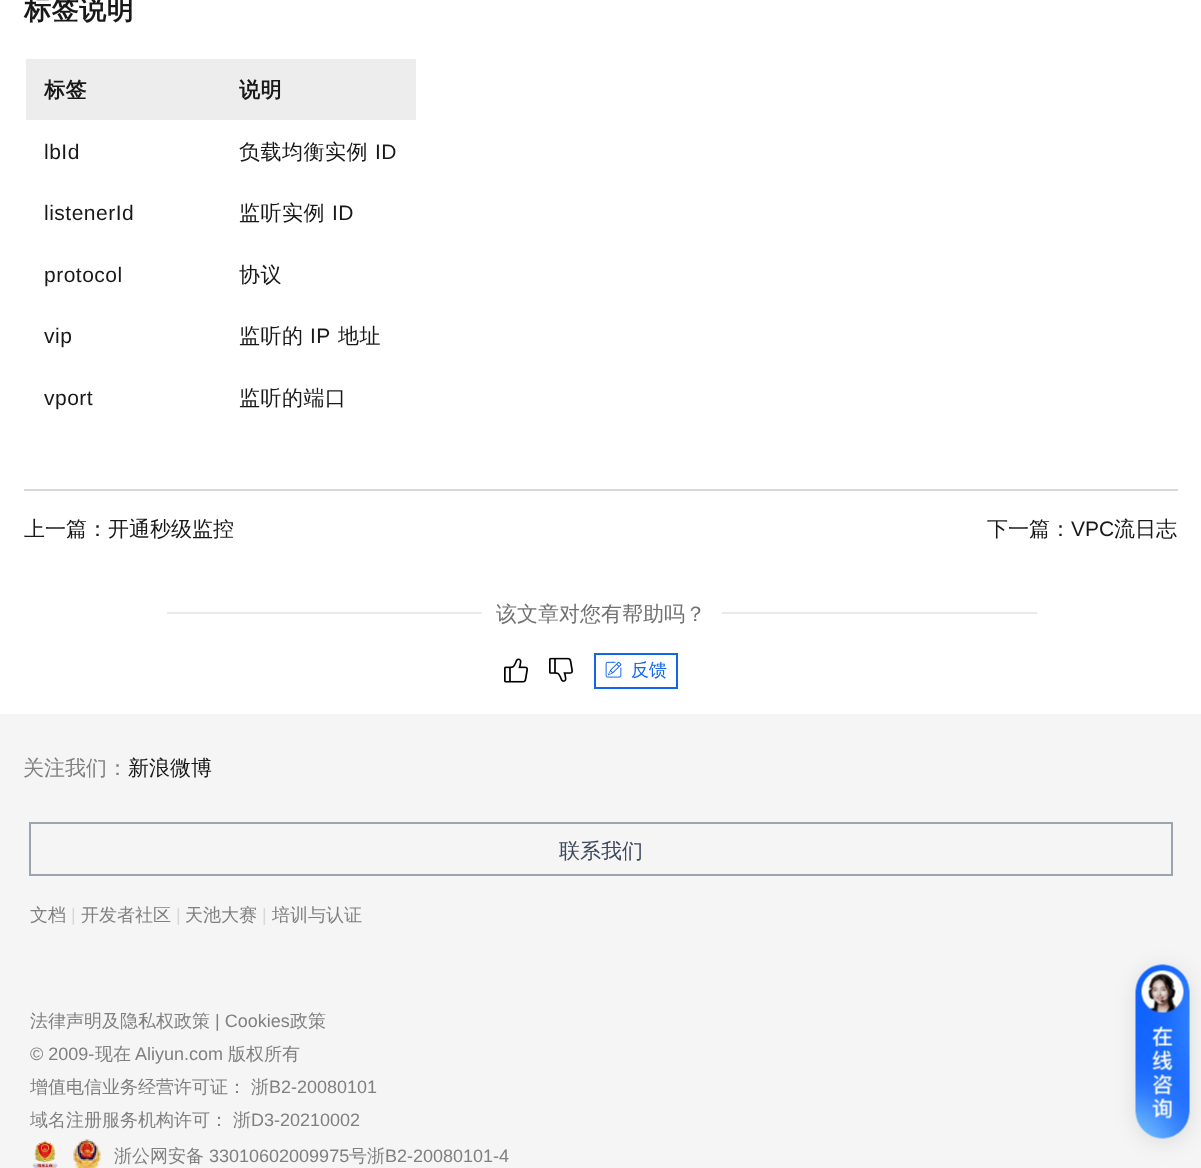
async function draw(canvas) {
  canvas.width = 1201
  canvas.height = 1168
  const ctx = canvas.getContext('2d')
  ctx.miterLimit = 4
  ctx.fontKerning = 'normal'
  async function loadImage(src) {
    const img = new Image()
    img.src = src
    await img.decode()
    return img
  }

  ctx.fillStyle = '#fff'
  ctx.fillRect(0, 0, 1201, 1168)
  ctx.letterSpacing = '0.5px'
  ctx.font = 'bold 27px WenQuanYi Zen Hei'
  ctx.fillStyle = '#181818'
  ctx.fillText('标签说明', 24, 19)
  ctx.fillStyle = '#ededed'
  ctx.fillRect(26, 59, 390, 61)
  ctx.font = 'bold 21px WenQuanYi Zen Hei'
  ctx.fillStyle = '#181818'
  ctx.fillText('标签', 44, 97)
  ctx.fillText('说明', 239, 97)
  ctx.font = '21px Liberation Sans'
  ctx.fillText('lbId', 44, 159)
  ctx.font = '500 21px WenQuanYi Zen Hei'
  ctx.fillText('负载均衡实例', 239, 159)
  ctx.font = '21px Liberation Sans'
  ctx.fillText('ID', 375, 159)
  ctx.fillText('listenerId', 44, 220)
  ctx.font = '500 21px WenQuanYi Zen Hei'
  ctx.fillText('监听实例', 239, 220)
  ctx.font = '21px Liberation Sans'
  ctx.fillText('ID', 332, 220)
  ctx.fillText('protocol', 44, 282)
  ctx.font = '500 21px WenQuanYi Zen Hei'
  ctx.fillText('协议', 239, 282)
  ctx.font = '21px Liberation Sans'
  ctx.fillText('vip', 44, 343)
  ctx.font = '500 21px WenQuanYi Zen Hei'
  ctx.fillText('监听的', 239, 343)
  ctx.font = '21px Liberation Sans'
  ctx.fillText('IP', 310, 343)
  ctx.font = '500 21px WenQuanYi Zen Hei'
  ctx.fillText('地址', 338, 343)
  ctx.font = '21px Liberation Sans'
  ctx.fillText('vport', 44, 405)
  ctx.font = '500 21px WenQuanYi Zen Hei'
  ctx.fillText('监听的端口', 239, 405)
  ctx.fillStyle = '#d7d8d9'
  ctx.fillRect(24, 489, 1154, 2)
  ctx.letterSpacing = '0px'
  ctx.fillStyle = '#181818'
  ctx.fillText('上一篇：开通秒级监控', 24, 536)
  ctx.fillText('下一篇：', 987, 536)
  ctx.font = '21px Liberation Sans'
  ctx.fillText('VPC', 1071, 536)
  ctx.font = '500 21px WenQuanYi Zen Hei'
  ctx.fillText('流日志', 1114, 536)
  ctx.fillStyle = '#eaeaea'
  ctx.fillRect(167, 612, 315, 2)
  ctx.fillStyle = '#717171'
  ctx.fillText('该文章对您有帮助吗？', 496, 621)
  ctx.fillStyle = '#eaeaea'
  ctx.fillRect(722, 612, 315, 2)
  ctx.drawImage(await loadImage('image0.png'), 504, 658, 24, 25)
  ctx.drawImage(await loadImage('image1.png'), 549, 657, 24, 25)
  ctx.strokeStyle = '#1366ec'
  ctx.lineWidth = 2
  ctx.strokeRect(595, 654, 82, 34)
  ctx.drawImage(await loadImage('image2.png'), 605, 661, 17, 17)
  ctx.font = '500 18px WenQuanYi Zen Hei'
  ctx.fillStyle = '#1366ec'
  ctx.fillText('反馈', 631, 676)
  ctx.fillStyle = '#f5f5f6'
  ctx.fillRect(0, 714, 1201, 454)
  ctx.font = '500 21px WenQuanYi Zen Hei'
  ctx.fillStyle = '#808080'
  ctx.fillText('关注我们：', 23, 775)
  ctx.fillStyle = '#181818'
  ctx.fillText('新浪微博', 128, 775)
  ctx.strokeStyle = '#9ca4af'
  ctx.strokeRect(30, 823, 1142, 52)
  ctx.fillStyle = '#3d495c'
  ctx.fillText('联系我们', 559, 858)
  ctx.font = '500 18px WenQuanYi Zen Hei'
  ctx.fillStyle = '#808080'
  ctx.fillText('文档', 30, 921)
  ctx.font = '18px Liberation Sans'
  ctx.fillStyle = '#d7d8d9'
  ctx.fillText('|', 71, 921)
  ctx.font = '500 18px WenQuanYi Zen Hei'
  ctx.fillStyle = '#808080'
  ctx.fillText('开发者社区', 81, 921)
  ctx.font = '18px Liberation Sans'
  ctx.fillStyle = '#d7d8d9'
  ctx.fillText('|', 176, 921)
  ctx.font = '500 18px WenQuanYi Zen Hei'
  ctx.fillStyle = '#808080'
  ctx.fillText('天池大赛', 185, 921)
  ctx.font = '18px Liberation Sans'
  ctx.fillStyle = '#d7d8d9'
  ctx.fillText('|', 262, 921)
  ctx.font = '500 18px WenQuanYi Zen Hei'
  ctx.fillStyle = '#808080'
  ctx.fillText('培训与认证', 272, 921)
  ctx.fillText('法律声明及隐私权政策', 30, 1027)
  ctx.font = '18px Liberation Sans'
  ctx.fillText('| Cookies', 215, 1027)
  ctx.font = '500 18px WenQuanYi Zen Hei'
  ctx.fillText('政策', 290, 1027)
  ctx.font = '18px Liberation Sans'
  ctx.fillText('© 2009-', 30, 1060)
  ctx.font = '500 18px WenQuanYi Zen Hei'
  ctx.fillText('现在', 95, 1060)
  ctx.font = '18px Liberation Sans'
  ctx.fillText('Aliyun.com', 135, 1060)
  ctx.font = '500 18px WenQuanYi Zen Hei'
  ctx.fillText('版权所有', 228, 1060)
  ctx.fillText('增值电信业务经营许可证：', 30, 1093)
  ctx.fillText('浙', 251, 1093)
  ctx.font = '18px Liberation Sans'
  ctx.fillText('B2-20080101', 269, 1093)
  ctx.font = '500 18px WenQuanYi Zen Hei'
  ctx.fillText('域名注册服务机构许可：', 30, 1126)
  ctx.fillText('浙', 233, 1126)
  ctx.font = '18px Liberation Sans'
  ctx.fillText('D3-20210002', 251, 1126)
  ctx.drawImage(await loadImage('image3.png'), 32, 1140, 26, 28)
  ctx.drawImage(await loadImage('image4.png'), 73, 1139, 28, 29)
  ctx.font = '500 18px WenQuanYi Zen Hei'
  ctx.fillText('浙公网安备', 114, 1162)
  ctx.font = '18px Liberation Sans'
  ctx.fillText('33010602009975', 209, 1162)
  ctx.font = '500 18px WenQuanYi Zen Hei'
  ctx.fillText('号浙', 349, 1162)
  ctx.font = '18px Liberation Sans'
  ctx.fillText('B2-20080101-4', 385, 1162)
  ctx.fillStyle = '#0000001a'
  ctx.filter = 'blur(11px)'
  ctx.beginPath()
  ctx.roundRect(1136, 968, 54, 174, 27)
  ctx.fill()
  ctx.filter = 'none'
  ctx.drawImage(await loadImage('image5.png'), 1135, 964, 55, 175)
}

draw(document.querySelector('canvas'))
